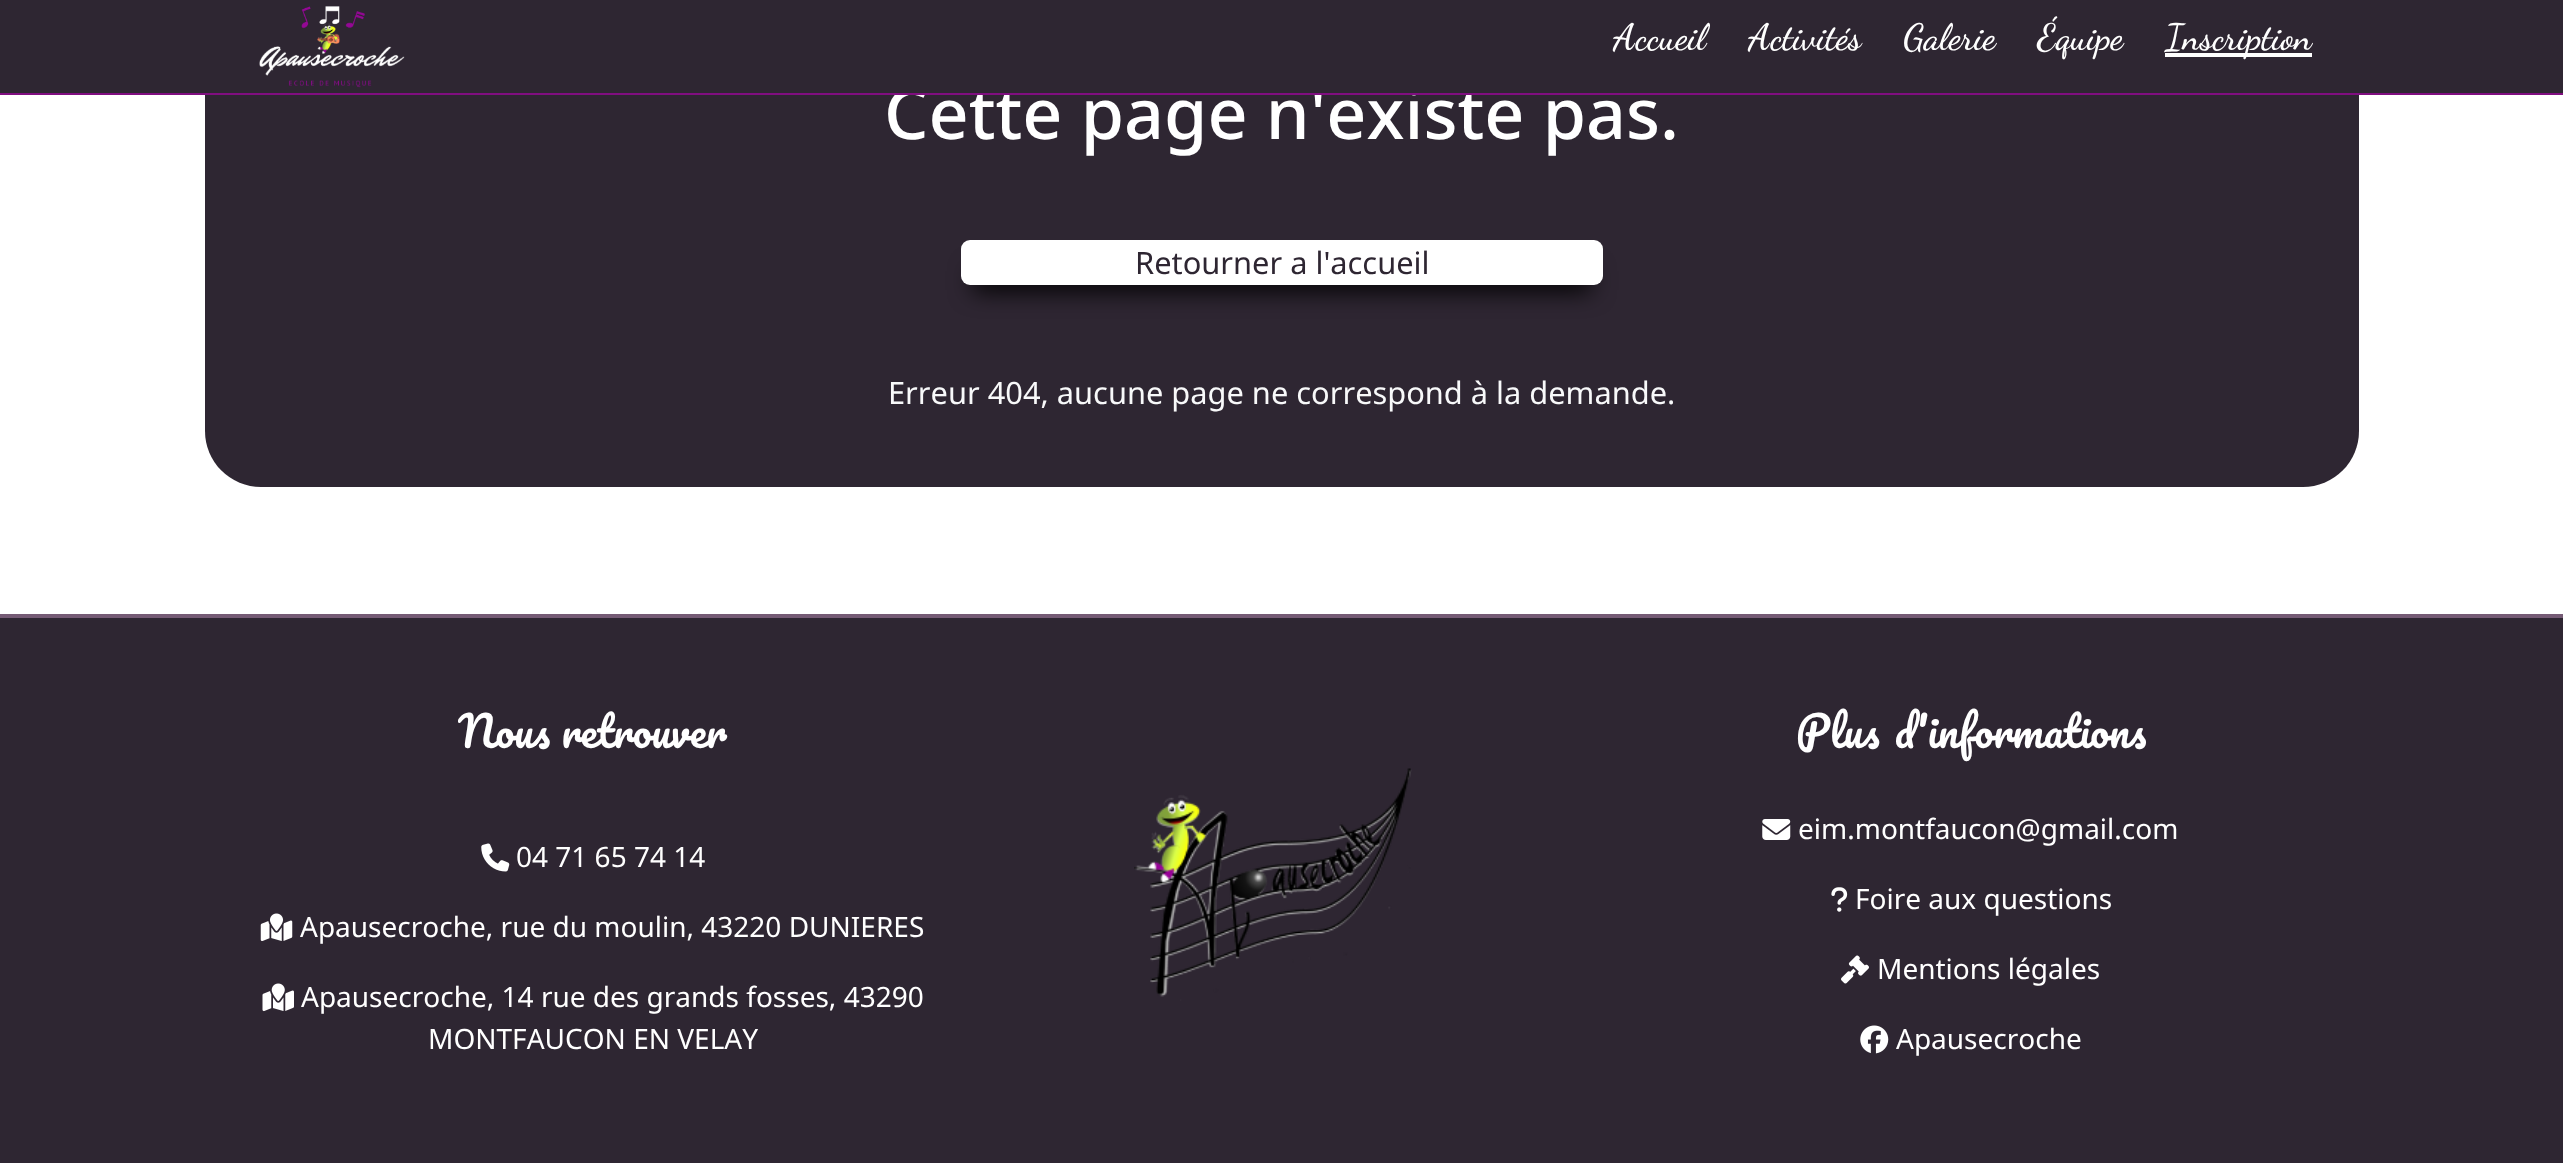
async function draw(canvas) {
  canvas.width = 2563
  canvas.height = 1163
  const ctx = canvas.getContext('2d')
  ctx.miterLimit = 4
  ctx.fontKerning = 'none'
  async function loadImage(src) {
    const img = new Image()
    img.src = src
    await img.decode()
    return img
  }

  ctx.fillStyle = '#fff'
  ctx.fillRect(0, 0, 2563, 1163)
  ctx.fillStyle = '#2e2632'
  ctx.beginPath()
  ctx.roundRect(205, -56, 2154, 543, 56)
  ctx.fill()
  ctx.font = '500 70px Noto Sans'
  ctx.fillStyle = '#fff'
  ctx.fillText('Cette page n\'existe pas.', 884, 139)
  ctx.fillStyle = '#2e2632'
  ctx.fillRect(0, 0, 2563, 93)
  ctx.fillStyle = '#800e80'
  ctx.fillRect(0, 93, 2563, 2)
  ctx.drawImage(await loadImage('image0.png'), 259, 6, 146, 82)
  ctx.font = '600 36.5px Dancing Script'
  ctx.fillStyle = '#fff'
  ctx.fillText('Accueil', 1613, 49)
  ctx.fillText('Activités', 1748, 49)
  ctx.fillText('Galerie', 1903, 49)
  ctx.fillText('Équipe', 2037, 49)
  ctx.fillRect(2165, 53, 147, 4)
  ctx.fillText('Inscription', 2165, 49)
  ctx.fillStyle = '#000'
  ctx.filter = 'blur(11.5px)'
  ctx.beginPath()
  ctx.rect(973, 270, 618, 21)
  ctx.fill()
  ctx.filter = 'none'
  ctx.fillStyle = '#fff'
  ctx.beginPath()
  ctx.roundRect(961, 240, 642, 45, 9)
  ctx.fill()
  ctx.font = '30.8px Noto Sans'
  ctx.fillStyle = '#2e2632'
  ctx.fillText('Retourner a l\'accueil', 1135, 274)
  ctx.fillStyle = '#f8f9fa'
  ctx.fillText('Erreur 404, aucune page ne correspond à la demande.', 888, 404)
  ctx.fillStyle = '#2e2632'
  ctx.fillRect(0, 618, 2563, 545)
  ctx.fillStyle = '#755b75'
  ctx.fillRect(0, 614, 2563, 4)
  ctx.font = '42px Pacifico'
  ctx.fillStyle = '#fff'
  ctx.fillText('Nous retrouver', 458, 748)
  ctx.drawImage(await loadImage('image1.png'), 481, 843, 29, 29)
  ctx.font = '28px Noto Sans'
  ctx.fillText('04 71 65 74 14', 516, 867)
  ctx.drawImage(await loadImage('image2.png'), 260, 913, 33, 28)
  ctx.fillText('Apausecroche, rue du moulin, 43220 DUNIERES', 300, 937)
  ctx.drawImage(await loadImage('image3.png'), 262, 983, 32, 29)
  ctx.fillText('Apausecroche, 14 rue des grands fosses, 43290', 301, 1007)
  ctx.fillText('MONTFAUCON EN VELAY', 428, 1049)
  ctx.drawImage(await loadImage('image4.png'), 1134, 768, 278, 233)
  ctx.wordSpacing = '4px'
  ctx.font = '42px Pacifico'
  ctx.fillText('Plus d\'informations', 1796, 748)
  ctx.drawImage(await loadImage('image5.png'), 1762, 819, 29, 21)
  ctx.wordSpacing = '0px'
  ctx.font = '28px Noto Sans'
  ctx.fillText('eim.montfaucon@gmail.com', 1798, 839)
  ctx.drawImage(await loadImage('image6.png'), 1831, 887, 17, 25)
  ctx.fillText('Foire aux questions', 1855, 909)
  ctx.drawImage(await loadImage('image7.png'), 1841, 955, 28, 29)
  ctx.fillText('Mentions légales', 1877, 979)
  ctx.drawImage(await loadImage('image8.png'), 1860, 1025, 29, 29)
  ctx.fillText('Apausecroche', 1896, 1049)
}

draw(document.querySelector('canvas'))
